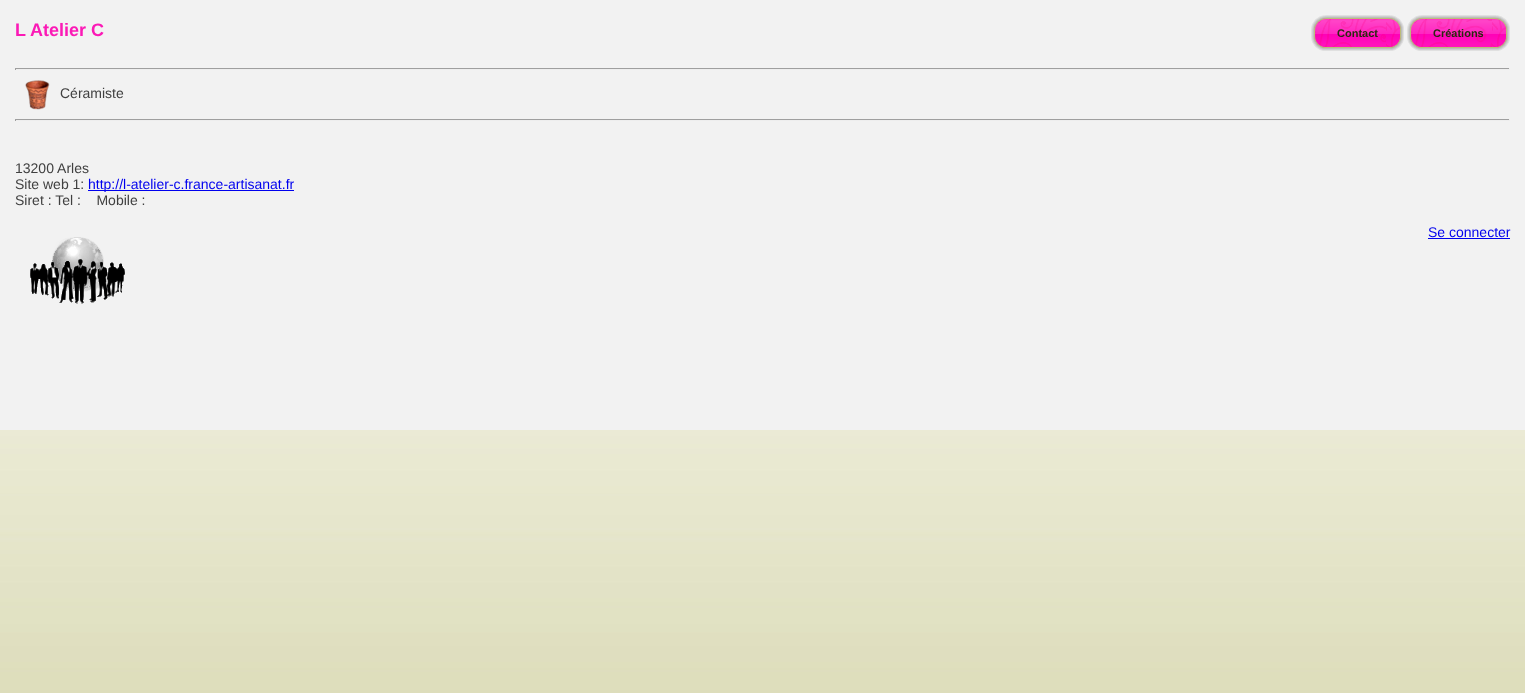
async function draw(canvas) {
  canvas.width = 1525
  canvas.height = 693
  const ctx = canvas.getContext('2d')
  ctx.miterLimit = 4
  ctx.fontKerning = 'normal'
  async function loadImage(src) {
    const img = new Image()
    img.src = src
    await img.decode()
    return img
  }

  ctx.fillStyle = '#fff'
  ctx.fillRect(0, 0, 1525, 693)
  ctx.drawImage(await loadImage('image0.png'), 0, 430, 1525, 263)
  ctx.fillStyle = '#f2f2f2'
  ctx.fillRect(0, 0, 1525, 430)
  ctx.font = 'bold 18px Liberation Sans'
  ctx.fillStyle = '#fb1ab6'
  ctx.fillText('L Atelier C', 15, 36)
  ctx.drawImage(await loadImage('image1.png'), 1311, 15, 75, 36)
  ctx.drawImage(await loadImage('image2.png'), 1386, 15, 18, 36)
  ctx.font = 'bold 11px Liberation Sans'
  ctx.fillStyle = '#2a290f'
  ctx.fillText('Contact', 1337, 37)
  ctx.drawImage(await loadImage('image3.png'), 1407, 15, 85, 36)
  ctx.drawImage(await loadImage('image2.png'), 1492, 15, 18, 36)
  ctx.fillText('Créations', 1433, 37)
  ctx.fillStyle = '#9f9f9f'
  ctx.fillRect(15, 68, 1495, 1)
  ctx.fillStyle = '#eee'
  ctx.fillRect(1509, 68, 1, 2)
  ctx.fillRect(15, 69, 1495, 1)
  ctx.fillStyle = '#9f9f9f'
  ctx.fillRect(15, 68, 1, 2)
  ctx.drawImage(await loadImage('image4.png'), 25, 80, 25, 30)
  ctx.font = '14px Liberation Sans'
  ctx.fillStyle = '#404040'
  ctx.fillText('Céramiste', 60, 98)
  ctx.fillStyle = '#9f9f9f'
  ctx.fillRect(15, 119, 1495, 1)
  ctx.fillStyle = '#eee'
  ctx.fillRect(1509, 119, 1, 2)
  ctx.fillRect(15, 120, 1495, 1)
  ctx.fillStyle = '#9f9f9f'
  ctx.fillRect(15, 119, 1, 2)
  ctx.fillStyle = '#404040'
  ctx.fillText('13200 Arles', 15, 173)
  ctx.fillText('Site web 1:', 15, 189)
  ctx.fillStyle = '#00e'
  ctx.fillRect(88, 190, 206, 1)
  ctx.fillText('http://l-atelier-c.france-artisanat.fr', 88, 189)
  ctx.fillStyle = '#404040'
  ctx.fillText('Siret : Tel :    Mobile :', 15, 205)
  ctx.fillStyle = '#00e'
  ctx.fillText('Se connecter', 1428, 237)
  ctx.fillRect(1428, 238, 82, 1)
  ctx.drawImage(await loadImage('image5.png'), 30, 237, 95, 67)
}

draw(document.querySelector('canvas'))
